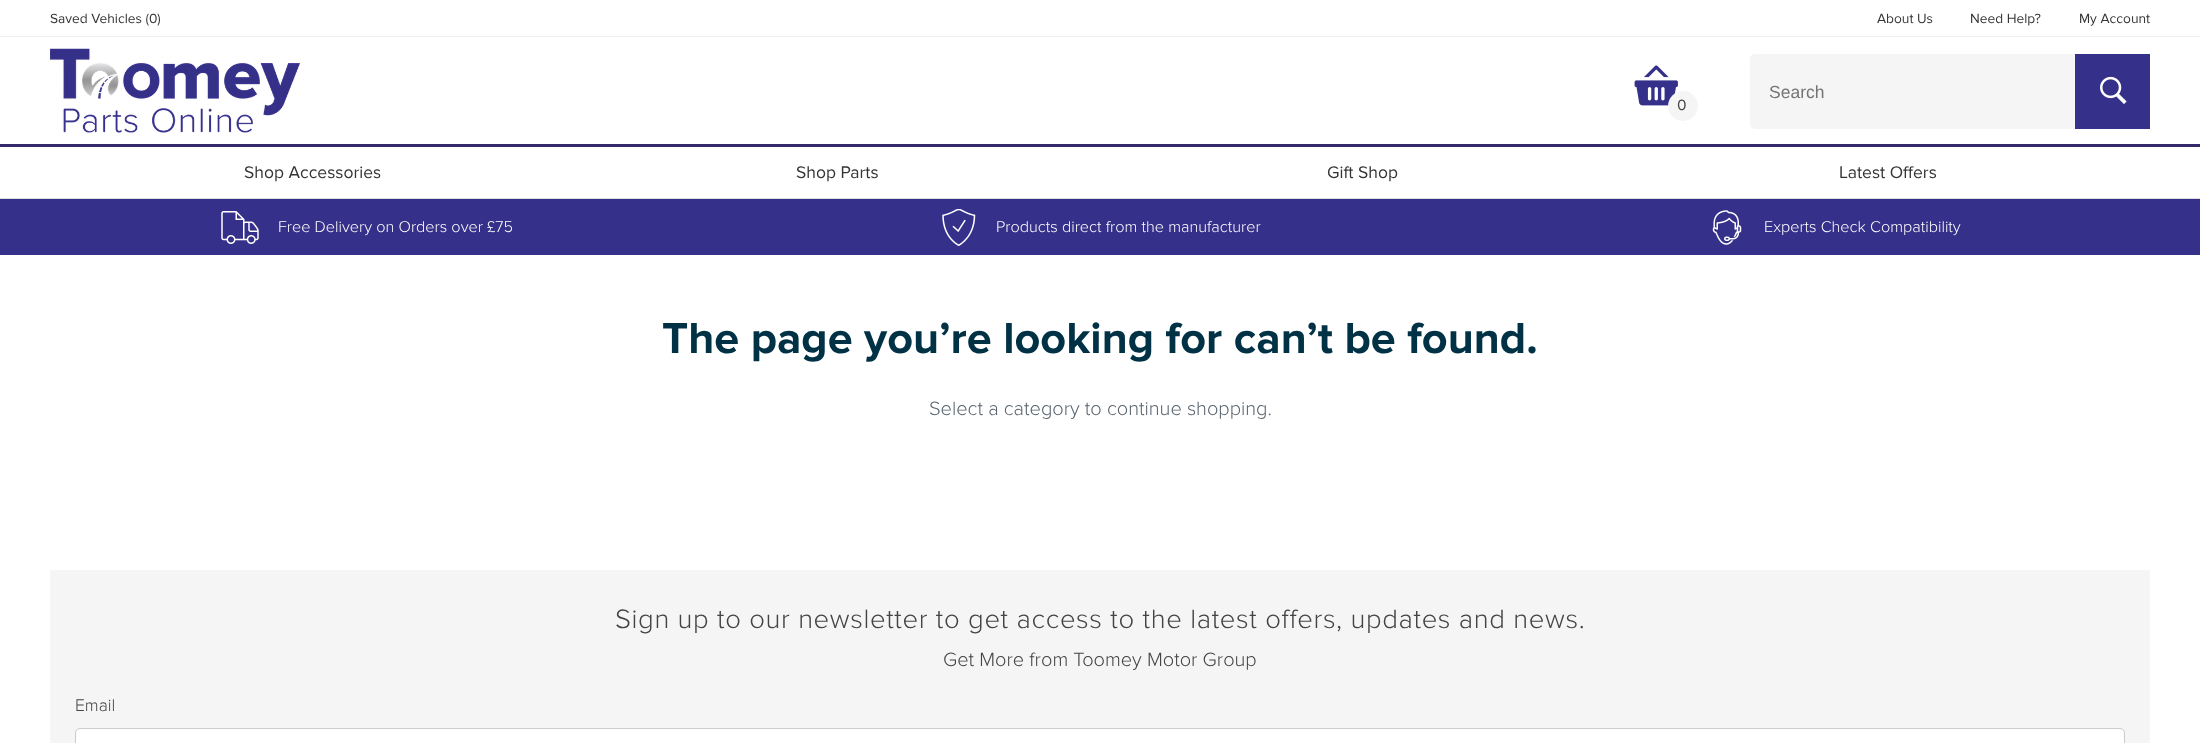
async function draw(canvas) {
  canvas.width = 2200
  canvas.height = 743
  const ctx = canvas.getContext('2d')
  ctx.miterLimit = 4
  ctx.fontKerning = 'normal'
  async function loadImage(src) {
    const img = new Image()
    img.src = src
    await img.decode()
    return img
  }

  ctx.fillStyle = '#fff'
  ctx.fillRect(0, 0, 2200, 743)
  ctx.fillStyle = '#eee'
  ctx.fillRect(0, 36, 2200, 1)
  ctx.font = '13.75px Proxima Nova'
  ctx.fillStyle = '#343434'
  ctx.fillText('Saved Vehicles (0)', 50, 23)
  ctx.fillText('About Us', 1877, 23)
  ctx.fillText('Need Help?', 1970, 23)
  ctx.fillText('My Account', 2079, 23)
  ctx.drawImage(await loadImage('image0.png'), 50, 48, 250, 85)
  ctx.fillStyle = '#f5f5f5'
  ctx.beginPath()
  ctx.roundRect(1750, 54, 400, 75, 5)
  ctx.fill()
  ctx.font = '17.5px Liberation Sans'
  ctx.fillStyle = '#757575'
  ctx.fillText('Search', 1769, 98)
  ctx.fillStyle = '#353089'
  ctx.fillRect(2075, 54, 75, 75)
  ctx.drawImage(await loadImage('image1.png'), 2100, 76, 27, 28)
  ctx.drawImage(await loadImage('image2.png'), 1634, 65, 44, 41)
  ctx.fillStyle = '#f5f5f5'
  ctx.beginPath()
  ctx.arc(1683, 106, 15, 0, 2 * Math.PI)
  ctx.fill()
  ctx.letterSpacing = '2px'
  ctx.font = 'bold 15px "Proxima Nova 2"'
  ctx.fillStyle = '#444'
  ctx.fillText('0', 1677, 110)
  ctx.fillStyle = '#33296b'
  ctx.fillRect(0, 144, 2200, 3)
  ctx.fillStyle = '#ddd'
  ctx.fillRect(0, 198, 2200, 1)
  ctx.letterSpacing = '0px'
  ctx.font = '17.5px Proxima Nova'
  ctx.fillStyle = '#343434'
  ctx.fillText('Shop Accessories', 244, 178)
  ctx.fillText('Shop Parts', 796, 178)
  ctx.fillText('Gift Shop', 1327, 178)
  ctx.fillText('Latest Offers', 1839, 178)
  ctx.fillStyle = '#353089'
  ctx.fillRect(0, 199, 2200, 56)
  ctx.drawImage(await loadImage('image3.png'), 221, 211, 38, 33)
  ctx.font = '300 16.25px Proxima Nova'
  ctx.fillStyle = '#fff'
  ctx.fillText('Free Delivery on Orders over £75', 278, 232)
  ctx.drawImage(await loadImage('image4.png'), 942, 209, 34, 37)
  ctx.fillText('Products direct from the manufacturer', 996, 232)
  ctx.drawImage(await loadImage('image5.png'), 1712, 210, 30, 35)
  ctx.fillText('Experts Check Compatibility', 1764, 232)
  ctx.font = 'bold 45px Proxima Nova'
  ctx.fillStyle = '#003145'
  ctx.fillText('The page you’re looking for can’t be found.', 662, 353)
  ctx.font = '300 20px Proxima Nova'
  ctx.fillStyle = '#5a646e'
  ctx.fillText('Select a category to continue shopping.', 929, 415)
  ctx.fillStyle = '#f5f5f5'
  ctx.fillRect(50, 570, 2100, 173)
  ctx.letterSpacing = '0.62px'
  ctx.font = '300 27.5px Proxima Nova'
  ctx.fillStyle = '#444'
  ctx.fillText('Sign up to our newsletter to get access to the latest offers, updates and news.', 615, 628)
  ctx.letterSpacing = '0px'
  ctx.font = '300 20px Proxima Nova'
  ctx.fillText('Get More from Toomey Motor Group', 943, 666)
  ctx.font = '300 17.5px Proxima Nova'
  ctx.fillText('Email', 75, 711)
  ctx.fillStyle = '#fff'
  ctx.beginPath()
  ctx.roundRect(75.5, 728.5, 2049, 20, 4.5)
  ctx.fill()
  ctx.strokeStyle = '#ccc'
  ctx.stroke()
}

draw(document.querySelector('canvas'))
